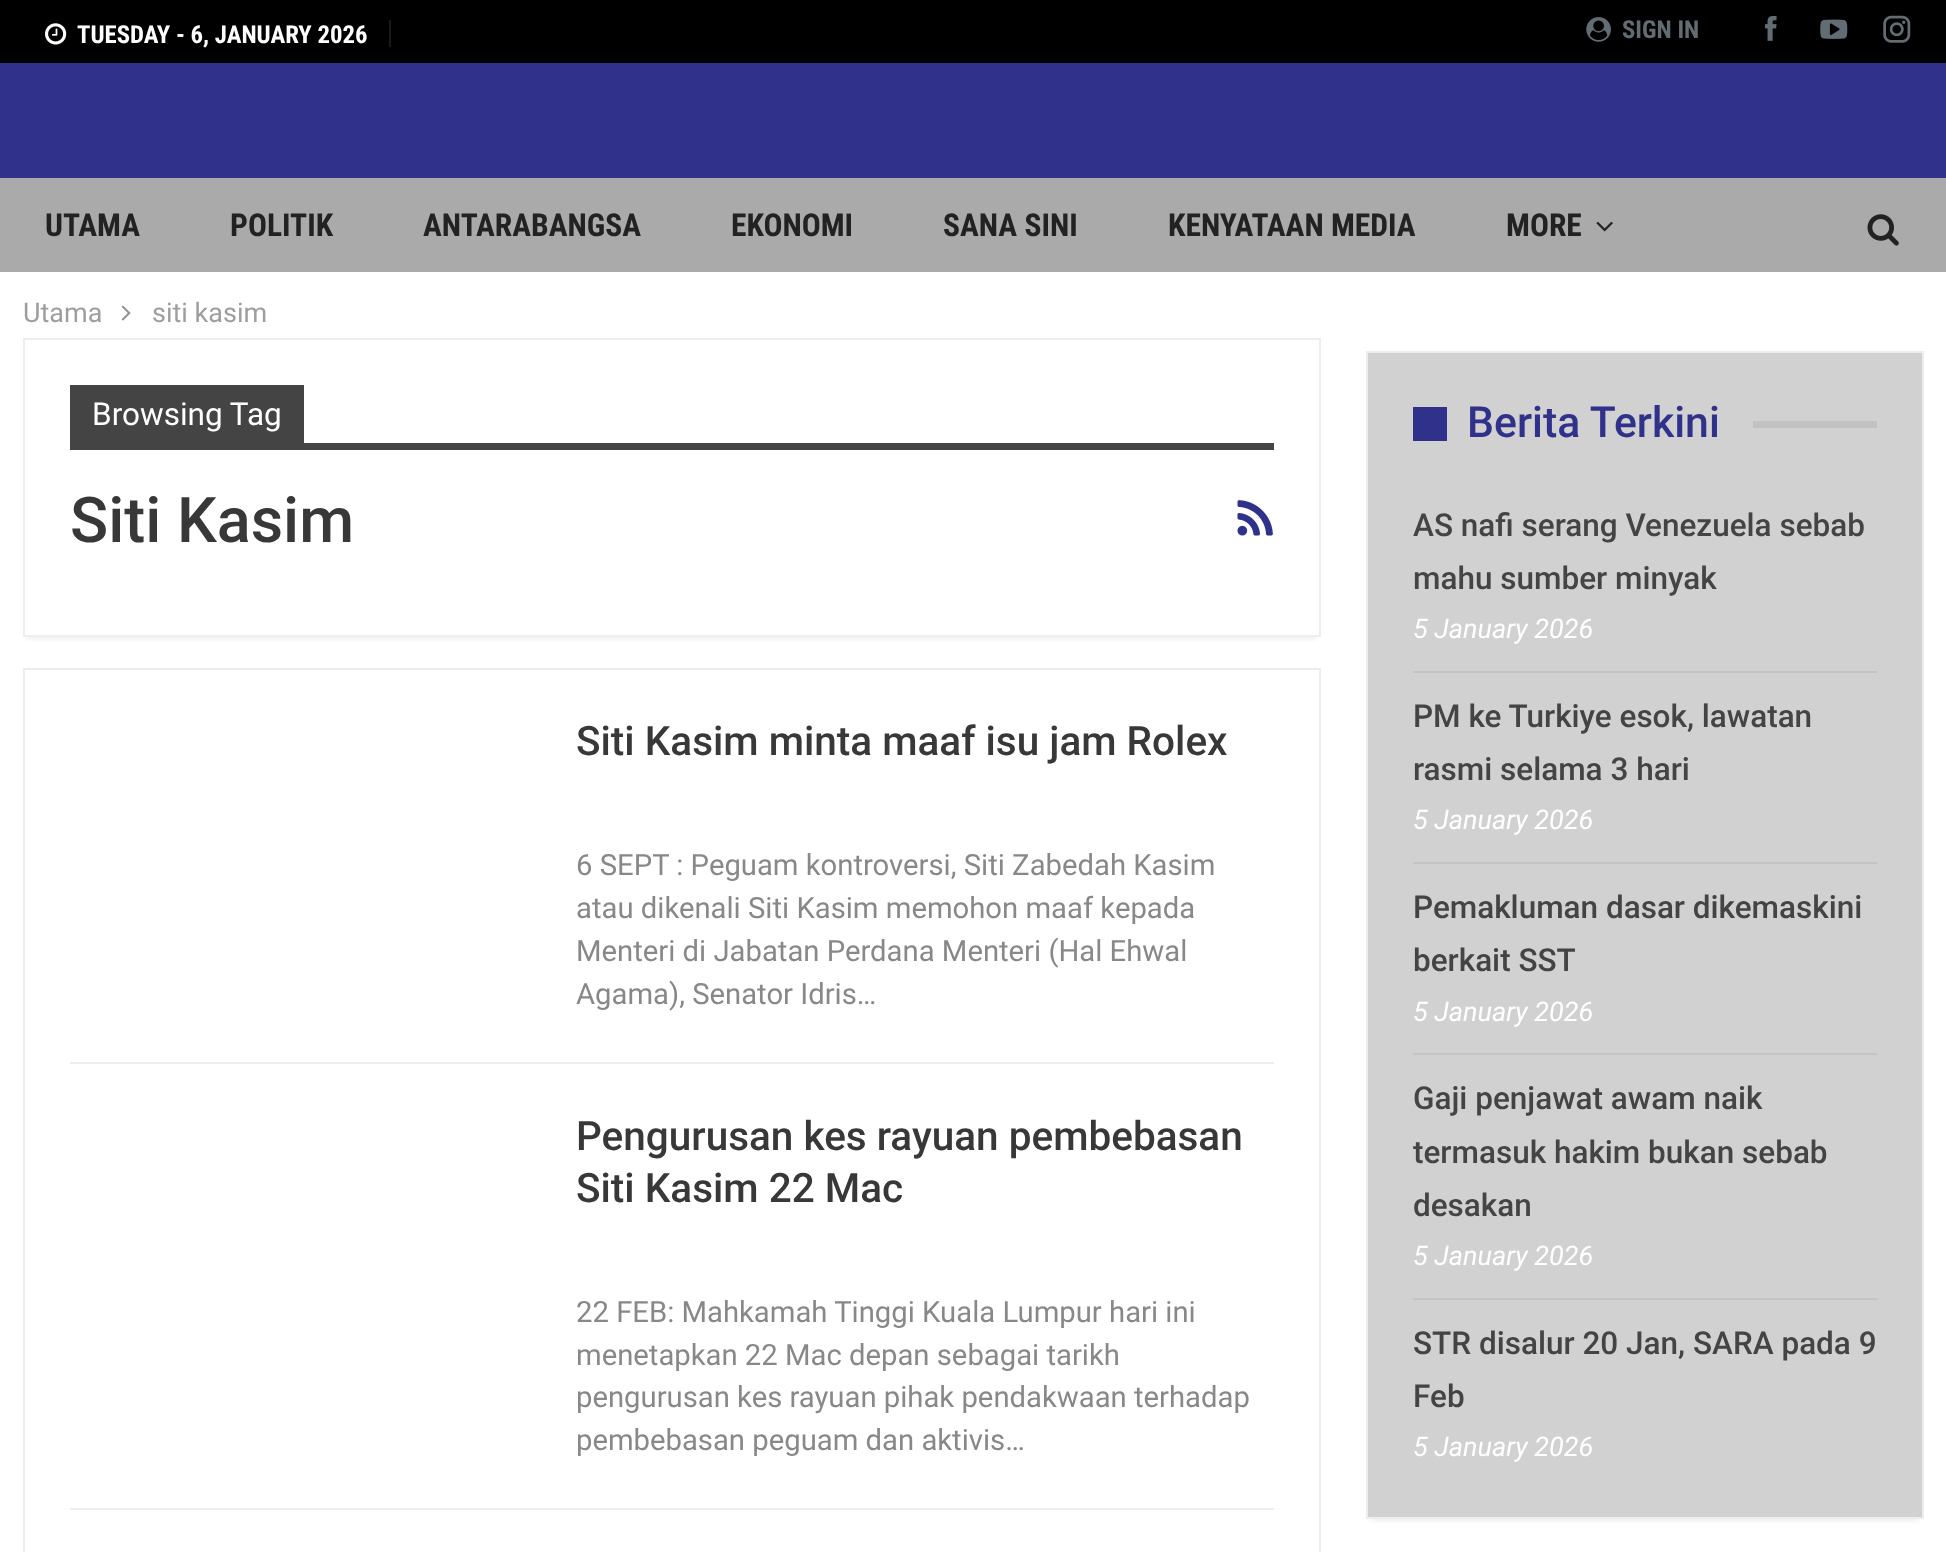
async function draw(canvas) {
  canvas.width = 1946
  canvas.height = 1552
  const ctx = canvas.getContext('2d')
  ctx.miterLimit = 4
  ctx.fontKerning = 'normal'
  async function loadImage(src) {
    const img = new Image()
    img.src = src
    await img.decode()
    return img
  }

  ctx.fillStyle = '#2f318b'
  ctx.fillRect(0, 0, 1946, 1552)
  ctx.fillStyle = '#000'
  ctx.fillRect(0, 0, 1946, 63)
  ctx.drawImage(await loadImage('image0.png'), 45, 23, 22, 22)
  ctx.font = 'bold 24.75px Roboto Condensed'
  ctx.fillStyle = '#fff'
  ctx.fillText('TUESDAY - 6, JANUARY 2026', 77, 43)
  ctx.fillStyle = '#1a1a1a'
  ctx.fillRect(389, 20, 2, 27)
  ctx.drawImage(await loadImage('image1.png'), 1586, 17, 25, 25)
  ctx.fillStyle = '#626d73'
  ctx.fillText('SIGN IN', 1622, 38)
  ctx.drawImage(await loadImage('image2.png'), 1764, 16, 13, 25)
  ctx.drawImage(await loadImage('image3.png'), 1820, 19, 28, 20)
  ctx.drawImage(await loadImage('image4.png'), 1883, 15, 28, 28)
  ctx.fillStyle = '#aaa'
  ctx.fillRect(0, 178, 1946, 94)
  ctx.font = 'bold 31.5px Roboto Condensed'
  ctx.fillStyle = '#222'
  ctx.fillText('UTAMA', 45, 236)
  ctx.fillText('POLITIK', 230, 236)
  ctx.fillText('ANTARABANGSA', 423, 236)
  ctx.fillText('EKONOMI', 731, 236)
  ctx.fillText('SANA SINI', 943, 236)
  ctx.fillText('KENYATAAN MEDIA', 1168, 236)
  ctx.fillText('MORE', 1506, 236)
  ctx.drawImage(await loadImage('image5.png'), 1596, 221, 17, 11)
  ctx.drawImage(await loadImage('image6.png'), 1867, 214, 32, 32)
  ctx.fillStyle = '#fff'
  ctx.fillRect(0, 272, 1946, 1280)
  ctx.font = '27px Roboto'
  ctx.fillStyle = '#9e9e9e'
  ctx.fillText('Utama', 23, 322)
  ctx.drawImage(await loadImage('image7.png'), 121, 305, 10, 16)
  ctx.fillText('siti kasim', 152, 322)
  ctx.save()
  ctx.beginPath()
  ctx.rect(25, 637, 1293, 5)
  ctx.clip()
  ctx.fillStyle = '#a9a9a933'
  ctx.filter = 'blur(2px)'
  ctx.beginPath()
  ctx.rect(27, 349, 1289, 290)
  ctx.fill()
  ctx.filter = 'none'
  ctx.restore()
  ctx.strokeStyle = '#eee'
  ctx.lineWidth = 2
  ctx.strokeRect(24, 339, 1296, 297)
  ctx.fillStyle = '#444'
  ctx.fillRect(70, 385, 234, 58)
  ctx.font = '31.5px Roboto'
  ctx.fillStyle = '#fff'
  ctx.fillText('Browsing Tag', 92, 425)
  ctx.fillStyle = '#444'
  ctx.fillRect(70, 443, 1204, 7)
  ctx.font = '500 63px Roboto'
  ctx.fillStyle = '#383838'
  ctx.fillText('Siti Kasim', 70, 542)
  ctx.drawImage(await loadImage('image8.png'), 1237, 500, 36, 36)
  ctx.strokeStyle = '#ededed'
  ctx.strokeRect(24, 669, 1296, 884)
  ctx.fillStyle = '#eee'
  ctx.fillRect(70, 1062, 1204, 2)
  ctx.font = '500 40.5px Roboto'
  ctx.fillStyle = '#383838'
  ctx.fillText('Siti Kasim minta maaf isu jam Rolex', 576, 755)
  ctx.font = '29.25px Roboto'
  ctx.fillStyle = '#888'
  ctx.fillText('6 SEPT : Peguam kontroversi, Siti Zabedah Kasim', 576, 875)
  ctx.fillText('atau dikenali Siti Kasim memohon maaf kepada', 576, 918)
  ctx.fillText('Menteri di Jabatan Perdana Menteri (Hal Ehwal', 576, 961)
  ctx.fillText('Agama), Senator Idris…', 576, 1004)
  ctx.fillStyle = '#eee'
  ctx.fillRect(70, 1508, 1204, 2)
  ctx.font = '500 40.5px Roboto'
  ctx.fillStyle = '#383838'
  ctx.fillText('Pengurusan kes rayuan pembebasan', 576, 1150)
  ctx.fillText('Siti Kasim 22 Mac', 576, 1202)
  ctx.font = '29.25px Roboto'
  ctx.fillStyle = '#888'
  ctx.fillText('22 FEB: Mahkamah Tinggi Kuala Lumpur hari ini', 576, 1322)
  ctx.fillText('menetapkan 22 Mac depan sebagai tarikh', 576, 1365)
  ctx.fillText('pengurusan kes rayuan pihak pendakwaan terhadap', 576, 1407)
  ctx.fillText('pembebasan peguam dan aktivis…', 576, 1450)
  ctx.fillStyle = '#a9a9a933'
  ctx.filter = 'blur(2px)'
  ctx.beginPath()
  ctx.rect(1370, 362, 549, 1159)
  ctx.fill()
  ctx.filter = 'none'
  ctx.fillStyle = '#d1d1d1'
  ctx.beginPath()
  ctx.rect(1367, 352, 556, 1166)
  ctx.fill()
  ctx.stroke()
  ctx.fillStyle = '#2f318b'
  ctx.fillRect(1413, 407, 34, 34)
  ctx.font = '500 42.75px Roboto'
  ctx.fillText('Berita Terkini', 1467, 437)
  ctx.fillStyle = '#c2c2c2'
  ctx.fillRect(1753, 421, 124, 7)
  ctx.fillStyle = '#c4c4c4'
  ctx.fillRect(1413, 671, 464, 2)
  ctx.font = '500 31.5px Roboto'
  ctx.fillStyle = '#444'
  ctx.fillText('AS nafi serang Venezuela sebab', 1413, 536)
  ctx.fillText('mahu sumber minyak', 1413, 589)
  ctx.font = 'italic 27px Roboto'
  ctx.fillStyle = '#fff'
  ctx.fillText('5 January 2026', 1413, 638)
  ctx.fillStyle = '#c4c4c4'
  ctx.fillRect(1413, 862, 464, 2)
  ctx.font = '500 31.5px Roboto'
  ctx.fillStyle = '#444'
  ctx.fillText('PM ke Turkiye esok, lawatan', 1413, 727)
  ctx.fillText('rasmi selama 3 hari', 1413, 780)
  ctx.font = 'italic 27px Roboto'
  ctx.fillStyle = '#fff'
  ctx.fillText('5 January 2026', 1413, 829)
  ctx.fillStyle = '#c4c4c4'
  ctx.fillRect(1413, 1053, 464, 2)
  ctx.font = '500 31.5px Roboto'
  ctx.fillStyle = '#444'
  ctx.fillText('Pemakluman dasar dikemaskini', 1413, 918)
  ctx.fillText('berkait SST', 1413, 971)
  ctx.font = 'italic 27px Roboto'
  ctx.fillStyle = '#fff'
  ctx.fillText('5 January 2026', 1413, 1021)
  ctx.fillStyle = '#c4c4c4'
  ctx.fillRect(1413, 1298, 464, 2)
  ctx.font = '500 31.5px Roboto'
  ctx.fillStyle = '#444'
  ctx.fillText('Gaji penjawat awam naik', 1413, 1109)
  ctx.fillText('termasuk hakim bukan sebab', 1413, 1163)
  ctx.fillText('desakan', 1413, 1216)
  ctx.font = 'italic 27px Roboto'
  ctx.fillStyle = '#fff'
  ctx.fillText('5 January 2026', 1413, 1265)
  ctx.font = '500 31.5px Roboto'
  ctx.fillStyle = '#444'
  ctx.fillText('STR disalur 20 Jan, SARA pada 9', 1413, 1354)
  ctx.fillText('Feb', 1413, 1407)
  ctx.font = 'italic 27px Roboto'
  ctx.fillStyle = '#fff'
  ctx.fillText('5 January 2026', 1413, 1456)
}

draw(document.querySelector('canvas'))
